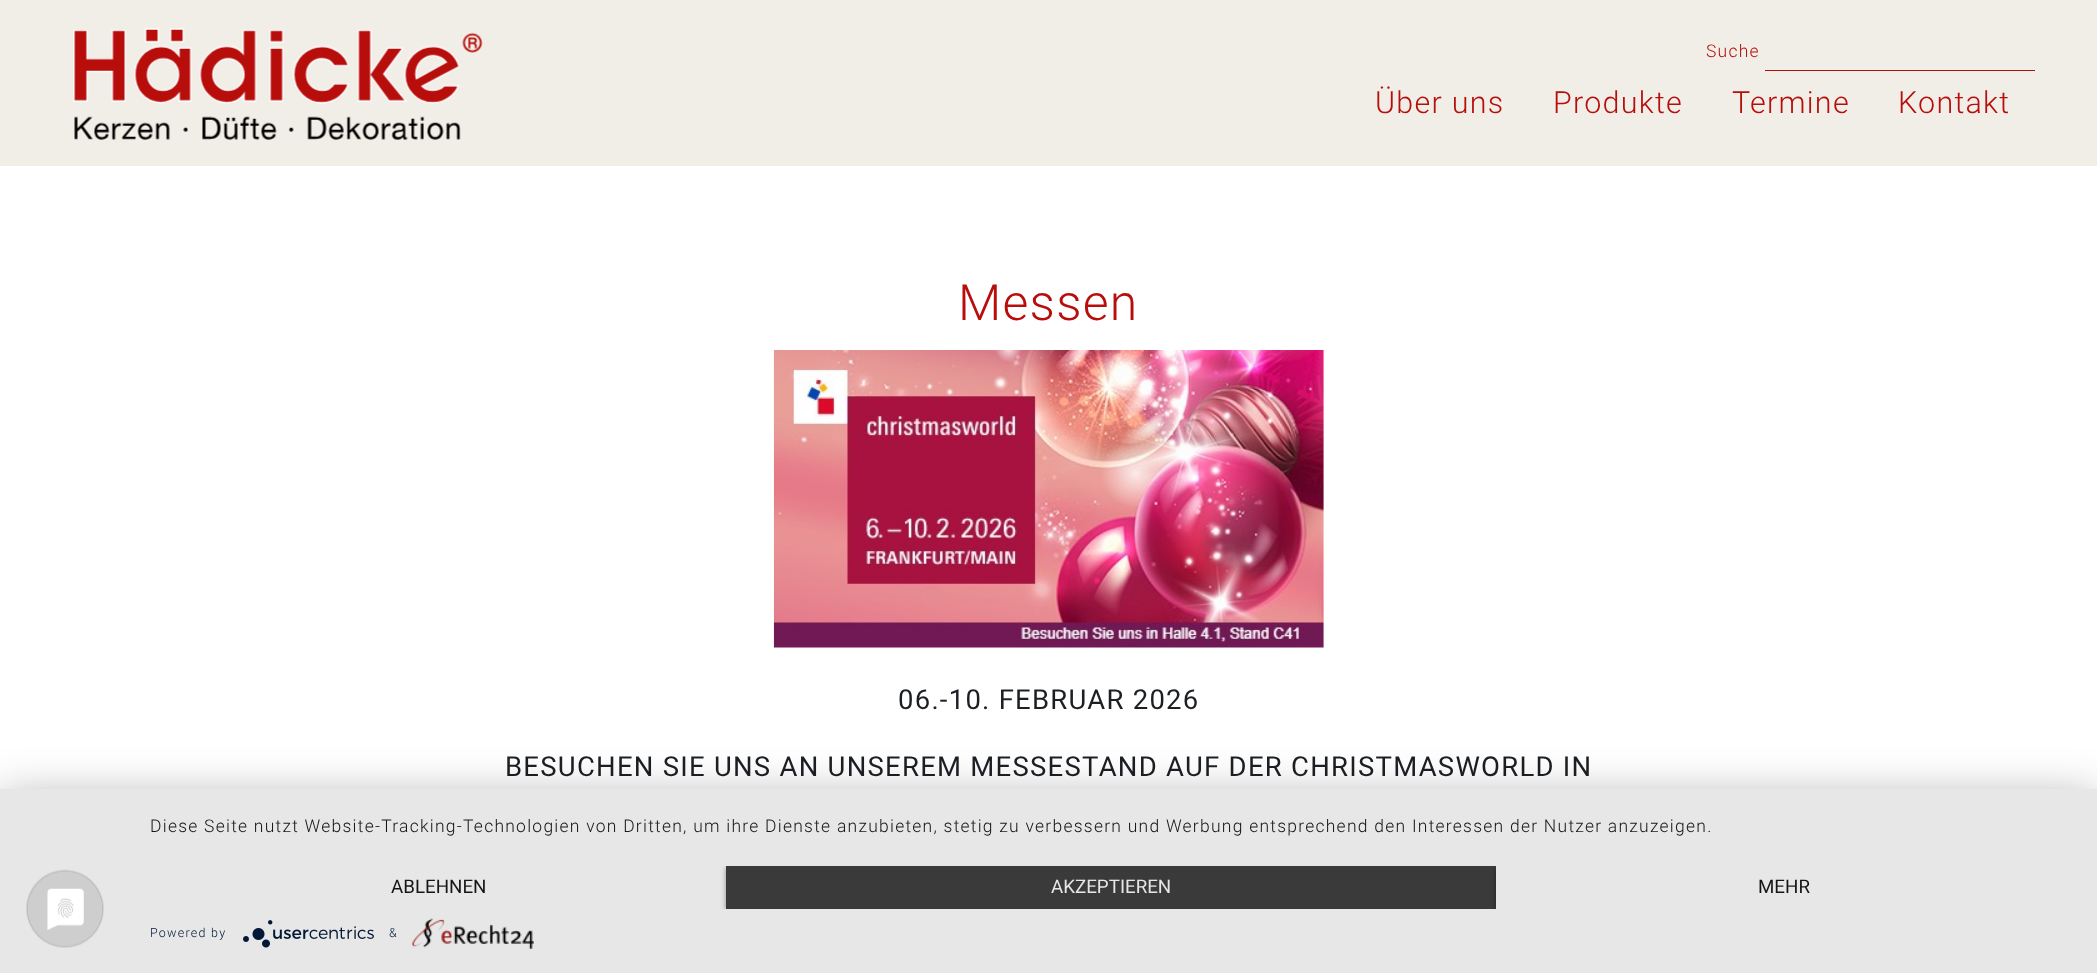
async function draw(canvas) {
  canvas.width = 2097
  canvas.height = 973
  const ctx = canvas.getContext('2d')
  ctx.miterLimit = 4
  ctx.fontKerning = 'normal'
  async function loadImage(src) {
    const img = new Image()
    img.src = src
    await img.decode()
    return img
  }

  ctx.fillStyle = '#fff'
  ctx.fillRect(0, 0, 2097, 973)
  ctx.fillStyle = '#f1eee7'
  ctx.fillRect(0, 0, 2097, 166)
  ctx.drawImage(await loadImage('image0.png'), 73, 28, 410, 112)
  ctx.letterSpacing = '1.25px'
  ctx.font = '300 17.5px Roboto'
  ctx.fillStyle = '#b70e0c'
  ctx.fillText('Suche', 1706, 57)
  ctx.fillRect(1765, 70, 270, 1)
  ctx.font = '300 30.5px Roboto'
  ctx.fillText('Über uns', 1375, 113)
  ctx.fillText('Produkte', 1553, 113)
  ctx.fillText('Termine', 1732, 113)
  ctx.fillText('Kontakt', 1898, 113)
  ctx.font = '300 50px Roboto'
  ctx.fillText('Messen', 958, 320)
  ctx.drawImage(await loadImage('image1.png'), 773, 350, 551, 298)
  ctx.font = '27.5px Roboto'
  ctx.fillStyle = '#1c1f24'
  ctx.fillText('06.-10. FEBRUAR 2026', 898, 709)
  ctx.fillText('BESUCHEN SIE UNS AN UNSEREM MESSESTAND AUF DER CHRISTMASWORLD IN', 505, 776)
  ctx.fillStyle = '#0000004d'
  ctx.filter = 'blur(22.5px)'
  ctx.beginPath()
  ctx.rect(0, 796, 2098, 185)
  ctx.fill()
  ctx.filter = 'none'
  ctx.fillStyle = '#e7e7e7'
  ctx.fillRect(0, 789, 2097, 184)
  ctx.drawImage(await loadImage('image2.png'), 26, 869, 78, 79)
  ctx.font = '300 17.5px Roboto'
  ctx.fillStyle = '#161616'
  ctx.fillText('Diese Seite nutzt Website-Tracking-Technologien von Dritten, um ihre Dienste anzubieten, stetig zu verbessern und Werbung entsprechend den Interessen der Nutzer anzuzeigen.', 150, 832)
  ctx.letterSpacing = '0px'
  ctx.font = '18.75px Roboto'
  ctx.fillText('ABLEHNEN', 391, 893)
  ctx.save()
  ctx.beginPath()
  ctx.rect(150, 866, 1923, 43)
  ctx.clip()
  ctx.fillStyle = '#00000066'
  ctx.filter = 'blur(2.5px)'
  ctx.beginPath()
  ctx.rect(726, 868, 770, 42)
  ctx.fill()
  ctx.filter = 'none'
  ctx.restore()
  ctx.fillStyle = '#3a3a3a'
  ctx.fillRect(726, 866, 770, 43)
  ctx.fillStyle = '#e6e6e6'
  ctx.fillText('AKZEPTIEREN', 1051, 893)
  ctx.save()
  ctx.beginPath()
  ctx.rect(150, 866, 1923, 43)
  ctx.clip()
  ctx.fillStyle = '#00000066'
  ctx.filter = 'blur(2.5px)'
  ctx.beginPath()
  ctx.rect(1496, 868, 577, 42)
  ctx.fill()
  ctx.filter = 'none'
  ctx.restore()
  ctx.fillStyle = '#e7e7e7'
  ctx.fillRect(1496, 866, 577, 43)
  ctx.fillStyle = '#161616'
  ctx.fillText('MEHR', 1758, 893)
  ctx.letterSpacing = '1.25px'
  ctx.font = '300 12.5px Roboto'
  ctx.fillStyle = '#021836'
  ctx.fillText('Powered by', 150, 937)
  ctx.drawImage(await loadImage('image3.png'), 243, 920, 131, 28)
  ctx.fillText('&', 389, 937)
  ctx.drawImage(await loadImage('image4.png'), 412, 918, 122, 31)
}

draw(document.querySelector('canvas'))
